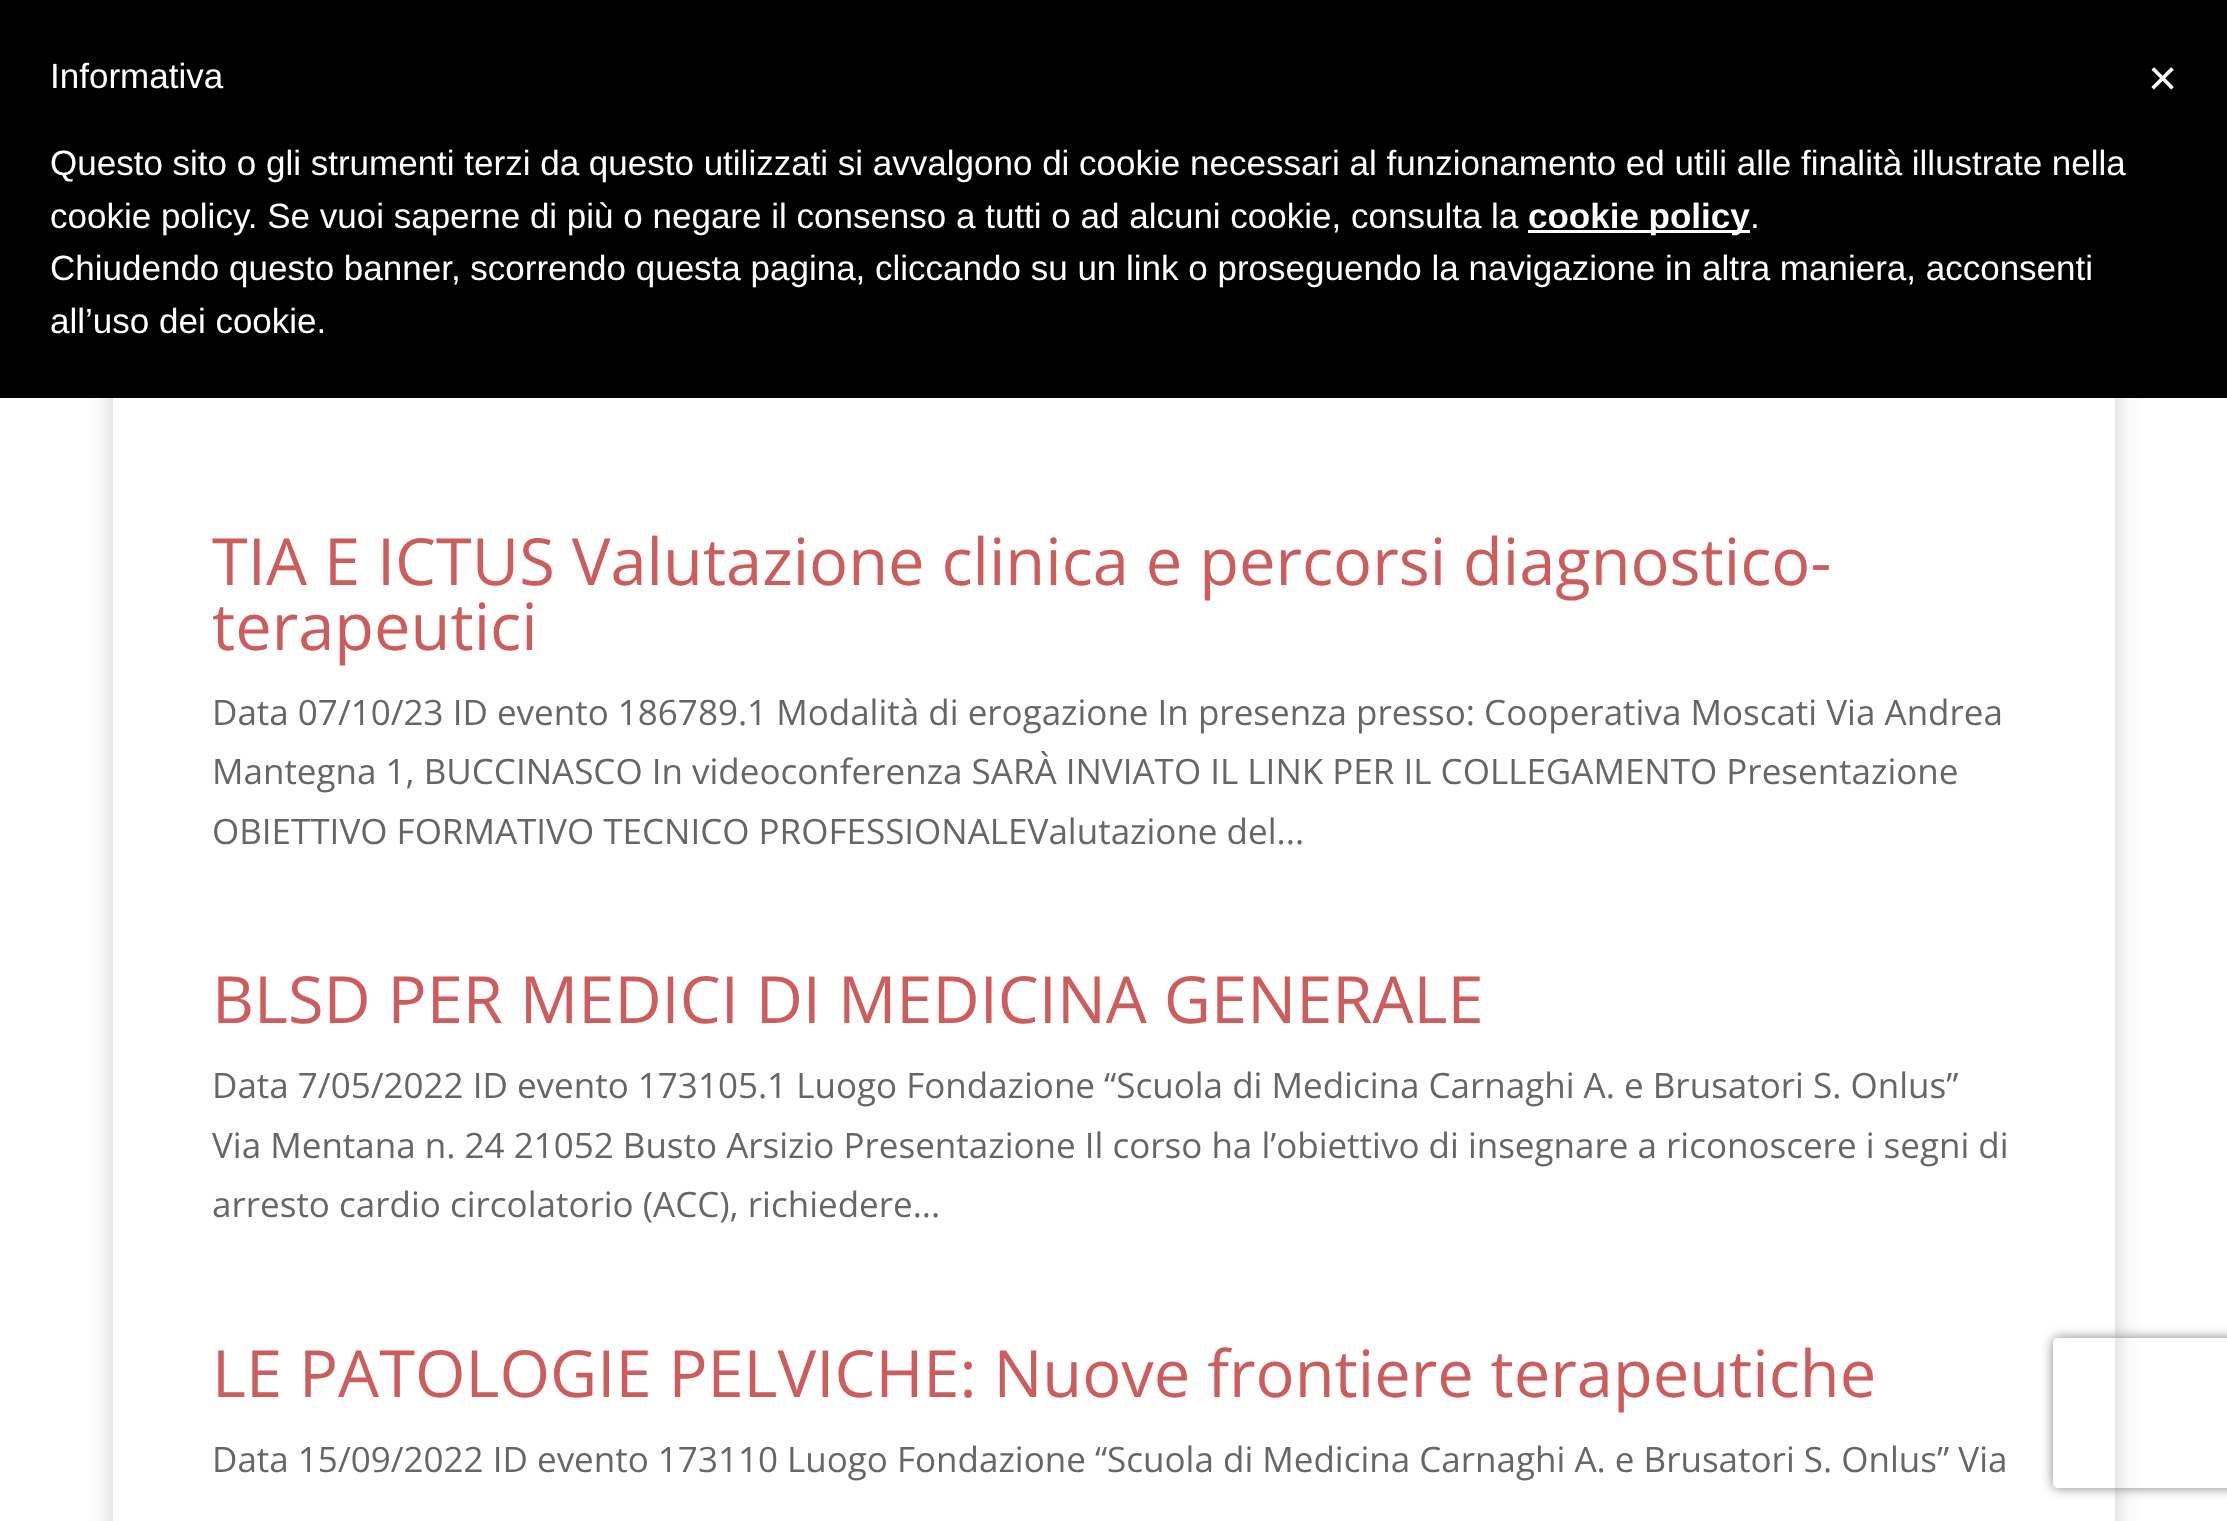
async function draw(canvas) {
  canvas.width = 2227
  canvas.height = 1521
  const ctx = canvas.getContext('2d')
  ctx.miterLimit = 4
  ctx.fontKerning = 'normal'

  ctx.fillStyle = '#fff'
  ctx.fillRect(0, 0, 2227, 1521)
  ctx.save()
  ctx.beginPath()
  ctx.moveTo(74, 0)
  ctx.lineTo(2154, 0)
  ctx.lineTo(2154, 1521)
  ctx.lineTo(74, 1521)
  ctx.closePath()
  ctx.moveTo(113, 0)
  ctx.lineTo(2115, 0)
  ctx.lineTo(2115, 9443)
  ctx.lineTo(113, 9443)
  ctx.closePath()
  ctx.clip('evenodd')
  ctx.fillStyle = '#00000033'
  ctx.filter = 'blur(12.5px)'
  ctx.beginPath()
  ctx.rect(113, 0, 2002, 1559)
  ctx.fill()
  ctx.filter = 'none'
  ctx.restore()
  ctx.fillStyle = '#000'
  ctx.fillRect(0, 0, 2227, 398)
  ctx.font = '35px Liberation Sans'
  ctx.fillStyle = '#fff'
  ctx.fillText('Informativa', 50, 88)
  ctx.fillText('Questo sito o gli strumenti terzi da questo utilizzati si avvalgono di cookie necessari al funzionamento ed utili alle finalità illustrate nella', 50, 175)
  ctx.fillText('cookie policy. Se vuoi saperne di più o negare il consenso a tutti o ad alcuni cookie, consulta la', 50, 228)
  ctx.fillRect(1528, 230, 222, 3)
  ctx.font = 'bold 35px Liberation Sans'
  ctx.fillText('cookie policy', 1528, 228)
  ctx.font = '35px Liberation Sans'
  ctx.fillText('.', 1750, 228)
  ctx.fillText('Chiudendo questo banner, scorrendo questa pagina, cliccando su un link o proseguendo la navigazione in altra maniera, acconsenti', 50, 280)
  ctx.fillText('all’uso dei cookie.', 50, 333)
  ctx.font = '50px Liberation Sans'
  ctx.fillText('×', 2148, 95)
  ctx.font = '65px Open Sans'
  ctx.fillStyle = '#cd5c5c'
  ctx.fillText('TIA E ICTUS Valutazione clinica e percorsi diagnostico-', 212, 585)
  ctx.fillText('terapeutici', 212, 650)
  ctx.font = '35px Open Sans'
  ctx.fillStyle = '#666'
  ctx.fillText('Data 07/10/23 ID evento 186789.1 Modalità di erogazione In presenza presso: Cooperativa Moscati Via Andrea', 212, 725)
  ctx.fillText('Mantegna 1, BUCCINASCO In videoconferenza SARÀ INVIATO IL LINK PER IL COLLEGAMENTO Presentazione', 212, 784)
  ctx.fillText('OBIETTIVO FORMATIVO TECNICO PROFESSIONALEValutazione del...', 212, 844)
  ctx.font = '65px Open Sans'
  ctx.fillStyle = '#cd5c5c'
  ctx.fillText('BLSD PER MEDICI DI MEDICINA GENERALE', 212, 1023)
  ctx.font = '35px Open Sans'
  ctx.fillStyle = '#666'
  ctx.fillText('Data 7/05/2022 ID evento 173105.1 Luogo Fondazione “Scuola di Medicina Carnaghi A. e Brusatori S. Onlus”', 212, 1098)
  ctx.fillText('Via Mentana n. 24 21052 Busto Arsizio Presentazione Il corso ha l’obiettivo di insegnare a riconoscere i segni di', 212, 1158)
  ctx.fillText('arresto cardio circolatorio (ACC), richiedere...', 212, 1217)
  ctx.font = '65px Open Sans'
  ctx.fillStyle = '#cd5c5c'
  ctx.fillText('LE PATOLOGIE PELVICHE: Nuove frontiere terapeutiche', 212, 1397)
  ctx.font = '35px Open Sans'
  ctx.fillStyle = '#666'
  ctx.fillText('Data 15/09/2022 ID evento 173110 Luogo Fondazione “Scuola di Medicina Carnaghi A. e Brusatori S. Onlus” Via', 212, 1472)
  ctx.save()
  ctx.beginPath()
  ctx.moveTo(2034, 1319)
  ctx.lineTo(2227, 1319)
  ctx.lineTo(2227, 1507)
  ctx.lineTo(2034, 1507)
  ctx.closePath()
  ctx.moveTo(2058, 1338)
  ctx.lineTo(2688, 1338)
  ctx.bezierCurveTo(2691, 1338, 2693, 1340, 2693, 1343)
  ctx.lineTo(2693, 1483)
  ctx.bezierCurveTo(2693, 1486, 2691, 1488, 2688, 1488)
  ctx.lineTo(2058, 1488)
  ctx.bezierCurveTo(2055, 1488, 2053, 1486, 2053, 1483)
  ctx.lineTo(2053, 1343)
  ctx.bezierCurveTo(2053, 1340, 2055, 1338, 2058, 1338)
  ctx.closePath()
  ctx.clip('evenodd')
  ctx.fillStyle = '#808080'
  ctx.filter = 'blur(6px)'
  ctx.beginPath()
  ctx.roundRect(2053, 1338, 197, 150, 5)
  ctx.fill()
  ctx.filter = 'none'
  ctx.restore()
}

draw(document.querySelector('canvas'))
